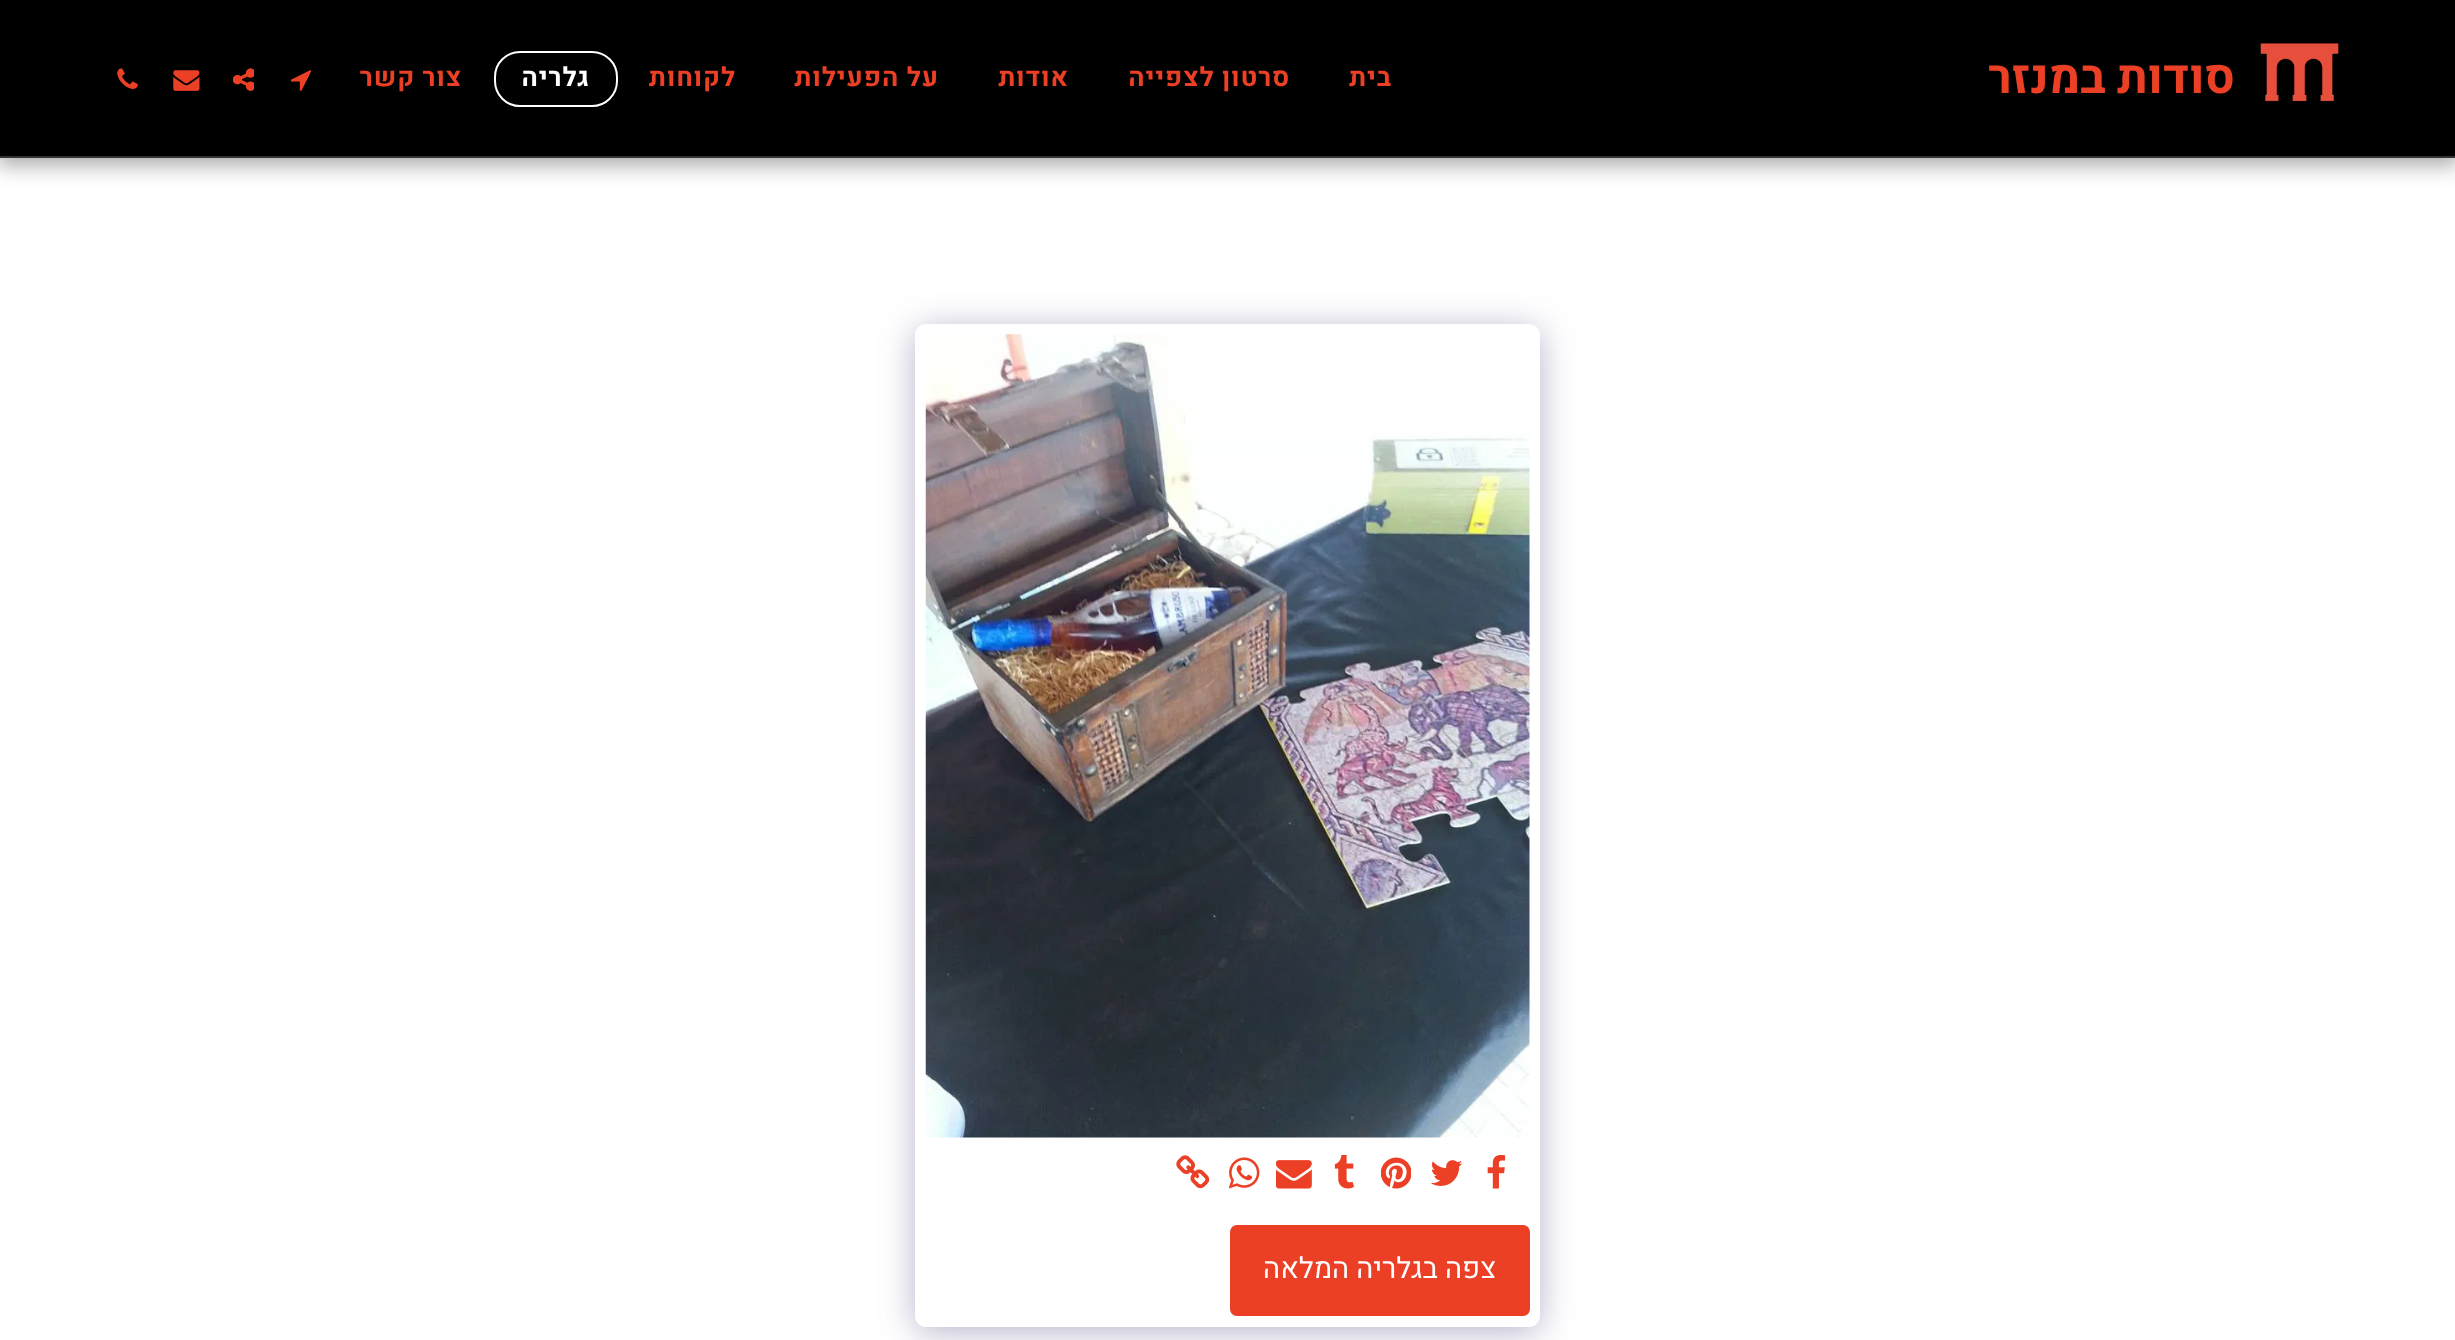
async function draw(canvas) {
  canvas.width = 2455
  canvas.height = 1340
  const ctx = canvas.getContext('2d')
  ctx.miterLimit = 4
  ctx.fontKerning = 'normal'
  async function loadImage(src) {
    const img = new Image()
    img.src = src
    await img.decode()
    return img
  }

  ctx.fillStyle = '#fff'
  ctx.fillRect(0, 0, 2455, 1340)
  ctx.fillStyle = '#00000059'
  ctx.filter = 'blur(10.5px)'
  ctx.beginPath()
  ctx.rect(-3, 0, 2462, 165)
  ctx.fill()
  ctx.filter = 'none'
  ctx.fillStyle = '#000'
  ctx.fillRect(0, 0, 2455, 156)
  ctx.fillStyle = '#333'
  ctx.fillRect(0, 156, 2455, 2)
  ctx.drawImage(await loadImage('image0.png'), 2260, 43, 79, 59)
  ctx.direction = 'rtl'
  ctx.font = 'bold 47.25px Heebo'
  ctx.fillStyle = '#ec4026'
  ctx.fillText('סודות במנזר', 2235, 93)
  ctx.letterSpacing = '0.9px'
  ctx.font = 'bold 26.25px Heebo'
  ctx.fillText('בית', 1392, 86)
  ctx.fillText('סרטון לצפייה', 1290, 86)
  ctx.fillText('אודות', 1069, 86)
  ctx.fillText('על הפעילות', 939, 86)
  ctx.fillText('לקוחות', 736, 86)
  ctx.beginPath()
  ctx.roundRect(495, 52, 122, 54, 25)
  ctx.strokeStyle = '#fff'
  ctx.lineWidth = 2
  ctx.stroke()
  ctx.fillStyle = '#fff'
  ctx.fillText('גלריה', 590, 86)
  ctx.fillStyle = '#ec4026'
  ctx.fillText('צור קשר', 462, 86)
  ctx.drawImage(await loadImage('image1.png'), 291, 70, 21, 21)
  ctx.drawImage(await loadImage('image2.png'), 233, 68, 21, 23)
  ctx.drawImage(await loadImage('image3.png'), 173, 70, 27, 21)
  ctx.drawImage(await loadImage('image4.png'), 117, 68, 21, 21)
  ctx.fillStyle = '#4d3f7a66'
  ctx.filter = 'blur(17.5px)'
  ctx.beginPath()
  ctx.roundRect(915, 329, 625, 1003, 11)
  ctx.fill()
  ctx.filter = 'none'
  ctx.fillStyle = '#fff'
  ctx.beginPath()
  ctx.roundRect(915, 324, 625, 1003, 11)
  ctx.fill()
  ctx.drawImage(await loadImage('image5.png'), 925, 334, 605, 804)
  ctx.drawImage(await loadImage('image6.png'), 1487, 1155, 19, 34)
  ctx.drawImage(await loadImage('image7.png'), 1430, 1160, 33, 26)
  ctx.drawImage(await loadImage('image8.png'), 1381, 1157, 30, 32)
  ctx.drawImage(await loadImage('image9.png'), 1334, 1155, 21, 34)
  ctx.drawImage(await loadImage('image10.png'), 1276, 1160, 36, 29)
  ctx.drawImage(await loadImage('image11.png'), 1229, 1157, 31, 32)
  ctx.drawImage(await loadImage('image12.png'), 1176, 1155, 34, 34)
  ctx.fillStyle = '#ec4026'
  ctx.beginPath()
  ctx.roundRect(1231, 1226, 298, 89, 6)
  ctx.fill()
  ctx.strokeStyle = '#ec4026'
  ctx.stroke()
  ctx.letterSpacing = '0px'
  ctx.font = '29px Heebo'
  ctx.fillStyle = '#fff'
  ctx.fillText('צפה בגלריה המלאה', 1496, 1278)
}

draw(document.querySelector('canvas'))
